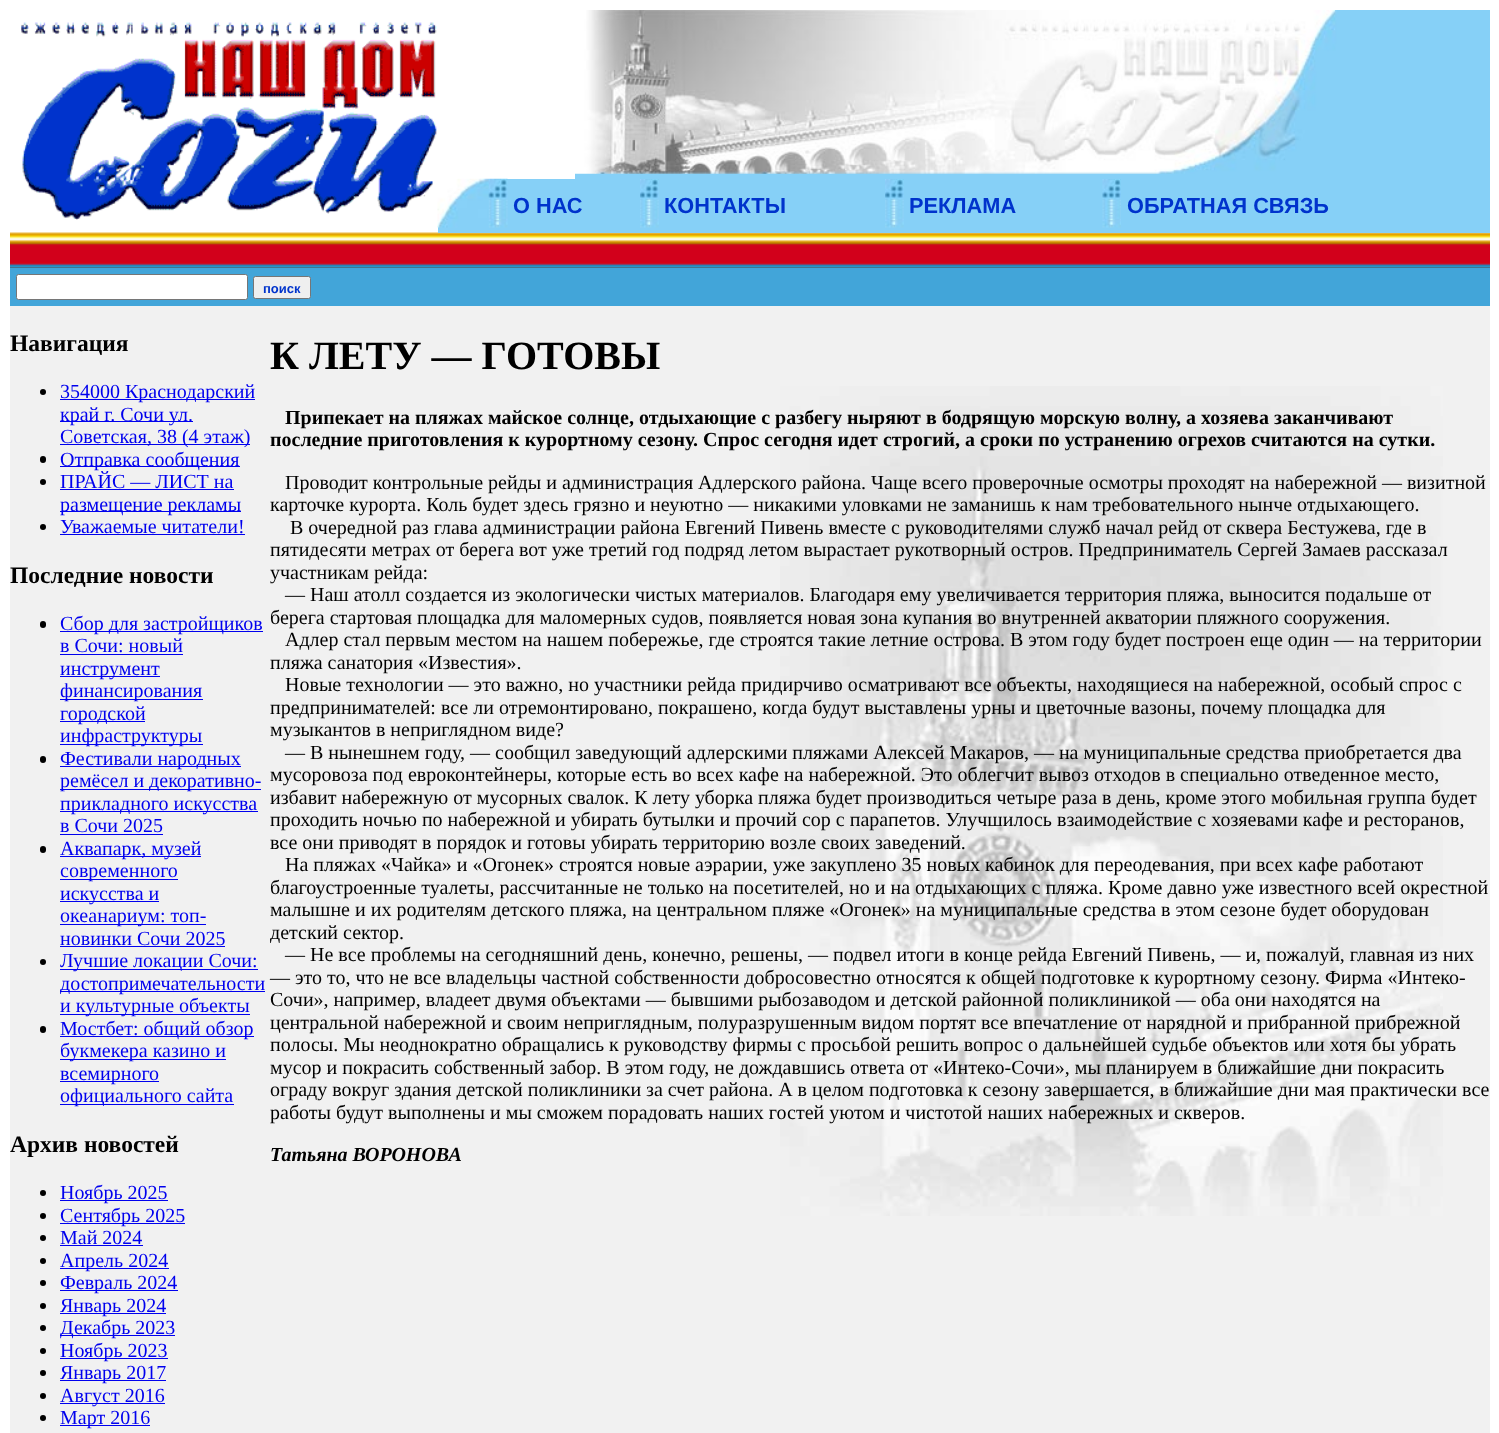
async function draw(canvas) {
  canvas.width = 1499
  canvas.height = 1433
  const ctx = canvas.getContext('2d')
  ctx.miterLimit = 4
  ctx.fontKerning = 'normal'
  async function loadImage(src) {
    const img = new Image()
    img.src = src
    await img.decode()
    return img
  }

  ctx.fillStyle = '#fff'
  ctx.fillRect(0, 0, 1499, 1433)
  ctx.drawImage(await loadImage('image0.png'), 21, 22, 416, 198)
  ctx.fillStyle = '#86d0f7'
  ctx.fillRect(575, 10, 915, 169)
  ctx.drawImage(await loadImage('image1.png'), 575, 10, 762, 164)
  ctx.fillStyle = '#555'
  ctx.fillRect(10, 267, 1480, 1)
  ctx.drawImage(await loadImage('image6.png'), 10, 232, 1480, 36)
  ctx.fillStyle = '#86d0f7'
  ctx.fillRect(438, 179, 1052, 54)
  ctx.drawImage(await loadImage('image2.png'), 437, 178, 52, 50)
  ctx.drawImage(await loadImage('image3.png'), 488, 178, 20, 50)
  ctx.font = 'bold 21.75px Liberation Sans'
  ctx.fillStyle = '#03c'
  ctx.fillText('О НАС', 513, 213)
  ctx.drawImage(await loadImage('image4.png'), 640, 179, 19, 49)
  ctx.fillText('КОНТАКТЫ', 664, 213)
  ctx.drawImage(await loadImage('image4.png'), 885, 179, 19, 49)
  ctx.fillText('РЕКЛАМА', 909, 213)
  ctx.drawImage(await loadImage('image5.png'), 1102, 179, 19, 49)
  ctx.fillText('ОБРАТНАЯ СВЯЗЬ', 1127, 213)
  ctx.fillStyle = '#42a5d9'
  ctx.fillRect(10, 268, 1480, 38)
  ctx.fillStyle = '#fff'
  ctx.beginPath()
  ctx.roundRect(16.5, 274.5, 231, 25, 2)
  ctx.fill()
  ctx.strokeStyle = '#767676'
  ctx.stroke()
  ctx.fillStyle = '#efefef'
  ctx.beginPath()
  ctx.roundRect(253.5, 276.5, 57, 22, 2)
  ctx.fill()
  ctx.stroke()
  ctx.font = 'bold 13px Liberation Sans'
  ctx.fillStyle = '#03c'
  ctx.fillText('поиск', 263, 293)
  ctx.fillStyle = '#f1f1f1'
  ctx.fillRect(10, 306, 1480, 1127)
  ctx.font = 'bold 23.5px Liberation Serif'
  ctx.fillStyle = '#000'
  ctx.fillText('Навигация', 10, 351)
  ctx.beginPath()
  ctx.arc(43, 392, 3, 0, 2 * Math.PI)
  ctx.fill()
  ctx.fillStyle = '#00e'
  ctx.fillRect(60, 399, 195, 1)
  ctx.font = '20px Liberation Serif'
  ctx.fillText('354000 Краснодарский', 60, 398)
  ctx.fillRect(60, 421, 133, 1)
  ctx.fillText('край г. Сочи ул.', 60, 421)
  ctx.fillRect(60, 444, 190, 1)
  ctx.fillText('Советская, 38 (4 этаж)', 60, 443)
  ctx.fillStyle = '#000'
  ctx.beginPath()
  ctx.roundRect(40, 456, 6, 7, 3)
  ctx.fill()
  ctx.fillStyle = '#00e'
  ctx.fillRect(60, 466, 180, 1)
  ctx.fillText('Отправка сообщения', 60, 466)
  ctx.fillStyle = '#000'
  ctx.beginPath()
  ctx.arc(43, 482, 3, 0, 2 * Math.PI)
  ctx.fill()
  ctx.fillStyle = '#00e'
  ctx.fillText('ПРАЙС — ЛИСТ на', 60, 488)
  ctx.fillRect(60, 489, 174, 1)
  ctx.fillRect(60, 511, 181, 1)
  ctx.fillText('размещение рекламы', 60, 511)
  ctx.fillStyle = '#000'
  ctx.beginPath()
  ctx.arc(43, 527, 3, 0, 2 * Math.PI)
  ctx.fill()
  ctx.fillStyle = '#00e'
  ctx.fillText('Уважаемые читатели!', 60, 533)
  ctx.fillRect(60, 534, 185, 1)
  ctx.font = 'bold 23.5px Liberation Serif'
  ctx.fillStyle = '#000'
  ctx.fillText('Последние новости', 10, 583)
  ctx.beginPath()
  ctx.roundRect(40, 621, 6, 7, 3)
  ctx.fill()
  ctx.fillStyle = '#00e'
  ctx.fillRect(60, 631, 203, 1)
  ctx.font = '20px Liberation Serif'
  ctx.fillText('Сбор для застройщиков', 60, 630)
  ctx.fillText('в Сочи: новый', 60, 652)
  ctx.fillRect(60, 654, 123, 1)
  ctx.fillRect(60, 676, 100, 1)
  ctx.fillText('инструмент', 60, 675)
  ctx.fillRect(60, 699, 143, 1)
  ctx.fillText('финансирования', 60, 697)
  ctx.fillRect(60, 721, 85, 1)
  ctx.fillText('городской', 60, 720)
  ctx.fillRect(60, 744, 143, 1)
  ctx.fillText('инфраструктуры', 60, 742)
  ctx.fillStyle = '#000'
  ctx.beginPath()
  ctx.roundRect(40, 756, 6, 7, 3)
  ctx.fill()
  ctx.fillStyle = '#00e'
  ctx.fillRect(60, 766, 181, 1)
  ctx.fillText('Фестивали народных', 60, 765)
  ctx.fillRect(60, 789, 201, 1)
  ctx.fillText('ремёсел и декоративно-', 60, 787)
  ctx.fillRect(60, 811, 198, 1)
  ctx.fillText('прикладного искусства', 60, 810)
  ctx.fillText('в Сочи 2025', 60, 832)
  ctx.fillRect(60, 834, 103, 1)
  ctx.fillStyle = '#000'
  ctx.beginPath()
  ctx.roundRect(40, 846, 6, 7, 3)
  ctx.fill()
  ctx.fillStyle = '#00e'
  ctx.fillRect(60, 856, 141, 1)
  ctx.fillText('Аквапарк, музей', 60, 855)
  ctx.fillRect(60, 879, 118, 1)
  ctx.fillText('современного', 60, 877)
  ctx.fillRect(60, 901, 99, 1)
  ctx.fillText('искусства и', 60, 900)
  ctx.fillRect(60, 924, 146, 1)
  ctx.fillText('океанариум: топ-', 60, 922)
  ctx.fillText('новинки Сочи 2025', 60, 945)
  ctx.fillRect(60, 946, 165, 1)
  ctx.fillStyle = '#000'
  ctx.beginPath()
  ctx.arc(43, 962, 3, 0, 2 * Math.PI)
  ctx.fill()
  ctx.fillStyle = '#00e'
  ctx.fillRect(60, 969, 198, 1)
  ctx.fillText('Лучшие локации Сочи:', 60, 967)
  ctx.fillRect(60, 991, 205, 1)
  ctx.fillText('достопримечательности', 60, 990)
  ctx.fillRect(60, 1014, 190, 1)
  ctx.fillText('и культурные объекты', 60, 1012)
  ctx.fillStyle = '#000'
  ctx.beginPath()
  ctx.roundRect(40, 1026, 6, 7, 3)
  ctx.fill()
  ctx.fillStyle = '#00e'
  ctx.fillRect(60, 1036, 194, 1)
  ctx.fillText('Мостбет: общий обзор', 60, 1035)
  ctx.fillRect(60, 1059, 166, 1)
  ctx.fillText('букмекера казино и', 60, 1057)
  ctx.fillRect(60, 1081, 99, 1)
  ctx.fillText('всемирного', 60, 1080)
  ctx.fillRect(60, 1104, 174, 1)
  ctx.fillText('официального сайта', 60, 1102)
  ctx.font = 'bold 23.5px Liberation Serif'
  ctx.fillStyle = '#000'
  ctx.fillText('Архив новостей', 10, 1152)
  ctx.beginPath()
  ctx.arc(43, 1193, 3, 0, 2 * Math.PI)
  ctx.fill()
  ctx.fillStyle = '#00e'
  ctx.fillRect(60, 1200, 108, 1)
  ctx.font = '20px Liberation Serif'
  ctx.fillText('Ноябрь 2025', 60, 1199)
  ctx.fillStyle = '#000'
  ctx.beginPath()
  ctx.arc(43, 1216, 3, 0, 2 * Math.PI)
  ctx.fill()
  ctx.fillStyle = '#00e'
  ctx.fillRect(60, 1223, 125, 1)
  ctx.fillText('Сентябрь 2025', 60, 1222)
  ctx.fillStyle = '#000'
  ctx.beginPath()
  ctx.arc(43, 1238, 3, 0, 2 * Math.PI)
  ctx.fill()
  ctx.fillStyle = '#00e'
  ctx.fillText('Май 2024', 60, 1244)
  ctx.fillRect(60, 1245, 83, 1)
  ctx.fillStyle = '#000'
  ctx.beginPath()
  ctx.arc(43, 1261, 3, 0, 2 * Math.PI)
  ctx.fill()
  ctx.fillStyle = '#00e'
  ctx.fillRect(60, 1268, 109, 1)
  ctx.fillText('Апрель 2024', 60, 1267)
  ctx.fillStyle = '#000'
  ctx.beginPath()
  ctx.arc(43, 1283, 3, 0, 2 * Math.PI)
  ctx.fill()
  ctx.fillStyle = '#00e'
  ctx.fillRect(60, 1290, 118, 1)
  ctx.fillText('Февраль 2024', 60, 1289)
  ctx.fillStyle = '#000'
  ctx.beginPath()
  ctx.arc(43, 1306, 3, 0, 2 * Math.PI)
  ctx.fill()
  ctx.fillStyle = '#00e'
  ctx.fillRect(60, 1313, 106, 1)
  ctx.fillText('Январь 2024', 60, 1312)
  ctx.fillStyle = '#000'
  ctx.beginPath()
  ctx.arc(43, 1328, 3, 0, 2 * Math.PI)
  ctx.fill()
  ctx.fillStyle = '#00e'
  ctx.fillRect(60, 1335, 115, 1)
  ctx.fillText('Декабрь 2023', 60, 1334)
  ctx.fillStyle = '#000'
  ctx.beginPath()
  ctx.arc(43, 1351, 3, 0, 2 * Math.PI)
  ctx.fill()
  ctx.fillStyle = '#00e'
  ctx.fillRect(60, 1358, 108, 1)
  ctx.fillText('Ноябрь 2023', 60, 1357)
  ctx.fillStyle = '#000'
  ctx.beginPath()
  ctx.arc(43, 1373, 3, 0, 2 * Math.PI)
  ctx.fill()
  ctx.fillStyle = '#00e'
  ctx.fillRect(60, 1380, 106, 1)
  ctx.fillText('Январь 2017', 60, 1379)
  ctx.fillStyle = '#000'
  ctx.beginPath()
  ctx.arc(43, 1396, 3, 0, 2 * Math.PI)
  ctx.fill()
  ctx.fillStyle = '#00e'
  ctx.fillRect(60, 1403, 105, 1)
  ctx.fillText('Август 2016', 60, 1402)
  ctx.fillStyle = '#000'
  ctx.beginPath()
  ctx.arc(43, 1418, 3, 0, 2 * Math.PI)
  ctx.fill()
  ctx.fillStyle = '#00e'
  ctx.fillRect(60, 1425, 90, 1)
  ctx.fillText('Март 2016', 60, 1424)
  ctx.drawImage(await loadImage('image7.png'), 780, 386, 663, 830)
  ctx.font = 'bold 40px Liberation Serif'
  ctx.fillStyle = '#000'
  ctx.fillText('К ЛЕТУ — ГОТОВЫ', 270, 369)
  ctx.font = 'bold 20px Liberation Serif'
  ctx.fillText('Припекает на пляжах майское солнце, отдыхающие с разбегу ныряют в бодрящую морскую волну, а хозяева заканчивают', 285, 424)
  ctx.fillText('последние приготовления к курортному сезону. Спрос сегодня идет строгий, а сроки по устранению огрехов считаются на сутки.', 270, 446)
  ctx.font = '20px Liberation Serif'
  ctx.fillText('Проводит контрольные рейды и администрация Адлерского района. Чаще всего проверочные осмотры проходят на набережной — визитной', 285, 489)
  ctx.fillText('карточке курорта. Коль будет здесь грязно и неуютно — никакими уловками не заманишь к нам требовательного нынче отдыхающего.', 270, 511)
  ctx.fillText('В очередной раз глава администрации района Евгений Пивень вместе с руководителями служб начал рейд от сквера Бестужева, где в', 290, 534)
  ctx.fillText('пятидесяти метрах от берега вот уже третий год подряд летом вырастает рукотворный остров. Предприниматель Сергей Замаев рассказал', 270, 556)
  ctx.fillText('участникам рейда:', 270, 579)
  ctx.fillText('— Наш атолл создается из экологически чистых материалов. Благодаря ему увеличивается территория пляжа, выносится подальше от', 285, 601)
  ctx.fillText('берега стартовая площадка для маломерных судов, появляется новая зона купания во внутренней акватории пляжного сооружения.', 270, 624)
  ctx.fillText('Адлер стал первым местом на нашем побережье, где строятся такие летние острова. В этом году будет построен еще один — на территории', 285, 646)
  ctx.fillText('пляжа санатория «Известия».', 270, 669)
  ctx.fillText('Новые технологии — это важно, но участники рейда придирчиво осматривают все объекты, находящиеся на набережной, особый спрос с', 285, 691)
  ctx.fillText('предпринимателей: все ли отремонтировано, покрашено, когда будут выставлены урны и цветочные вазоны, почему площадка для', 270, 714)
  ctx.fillText('музыкантов в неприглядном виде?', 270, 736)
  ctx.fillText('— В нынешнем году, — сообщил заведующий адлерскими пляжами Алексей Макаров, — на муниципальные средства приобретается два', 285, 759)
  ctx.fillText('мусоровоза под евроконтейнеры, которые есть во всех кафе на набережной. Это облегчит вывоз отходов в специально отведенное место,', 270, 781)
  ctx.fillText('избавит набережную от мусорных свалок. К лету уборка пляжа будет производиться четыре раза в день, кроме этого мобильная группа будет', 270, 804)
  ctx.fillText('проходить ночью по набережной и убирать бутылки и прочий сор с парапетов. Улучшилось взаимодействие с хозяевами кафе и ресторанов,', 270, 826)
  ctx.fillText('все они приводят в порядок и готовы убирать территорию возле своих заведений.', 270, 849)
  ctx.fillText('На пляжах «Чайка» и «Огонек» строятся новые аэрарии, уже закуплено 35 новых кабинок для переодевания, при всех кафе работают', 285, 871)
  ctx.fillText('благоустроенные туалеты, рассчитанные не только на посетителей, но и на отдыхающих с пляжа. Кроме давно уже известного всей окрестной', 270, 894)
  ctx.fillText('малышне и их родителям детского пляжа, на центральном пляже «Огонек» на муниципальные средства в этом сезоне будет оборудован', 270, 916)
  ctx.fillText('детский сектор.', 270, 939)
  ctx.fillText('— Не все проблемы на сегодняшний день, конечно, решены, — подвел итоги в конце рейда Евгений Пивень, — и, пожалуй, главная из них', 285, 961)
  ctx.fillText('— это то, что не все владельцы частной собственности добросовестно относятся к общей подготовке к курортному сезону. Фирма «Интеко-', 270, 984)
  ctx.fillText('Сочи», например, владеет двумя объектами — бывшими рыбозаводом и детской районной поликлиникой — оба они находятся на', 270, 1006)
  ctx.fillText('центральной набережной и своим неприглядным, полуразрушенным видом портят все впечатление от нарядной и прибранной прибрежной', 270, 1029)
  ctx.fillText('полосы. Мы неоднократно обращались к руководству фирмы с просьбой решить вопрос о дальнейшей судьбе объектов или хотя бы убрать', 270, 1051)
  ctx.fillText('мусор и покрасить собственный забор. В этом году, не дождавшись ответа от «Интеко-Сочи», мы планируем в ближайшие дни покрасить', 270, 1074)
  ctx.fillText('ограду вокруг здания детской поликлиники за счет района. А в целом подготовка к сезону завершается, в ближайшие дни мая практически все', 270, 1096)
  ctx.fillText('работы будут выполнены и мы сможем порадовать наших гостей уютом и чистотой наших набережных и скверов.', 270, 1119)
  ctx.font = 'italic bold 20px Liberation Serif'
  ctx.fillText('Татьяна ВОРОНОВА', 270, 1161)
}

draw(document.querySelector('canvas'))
